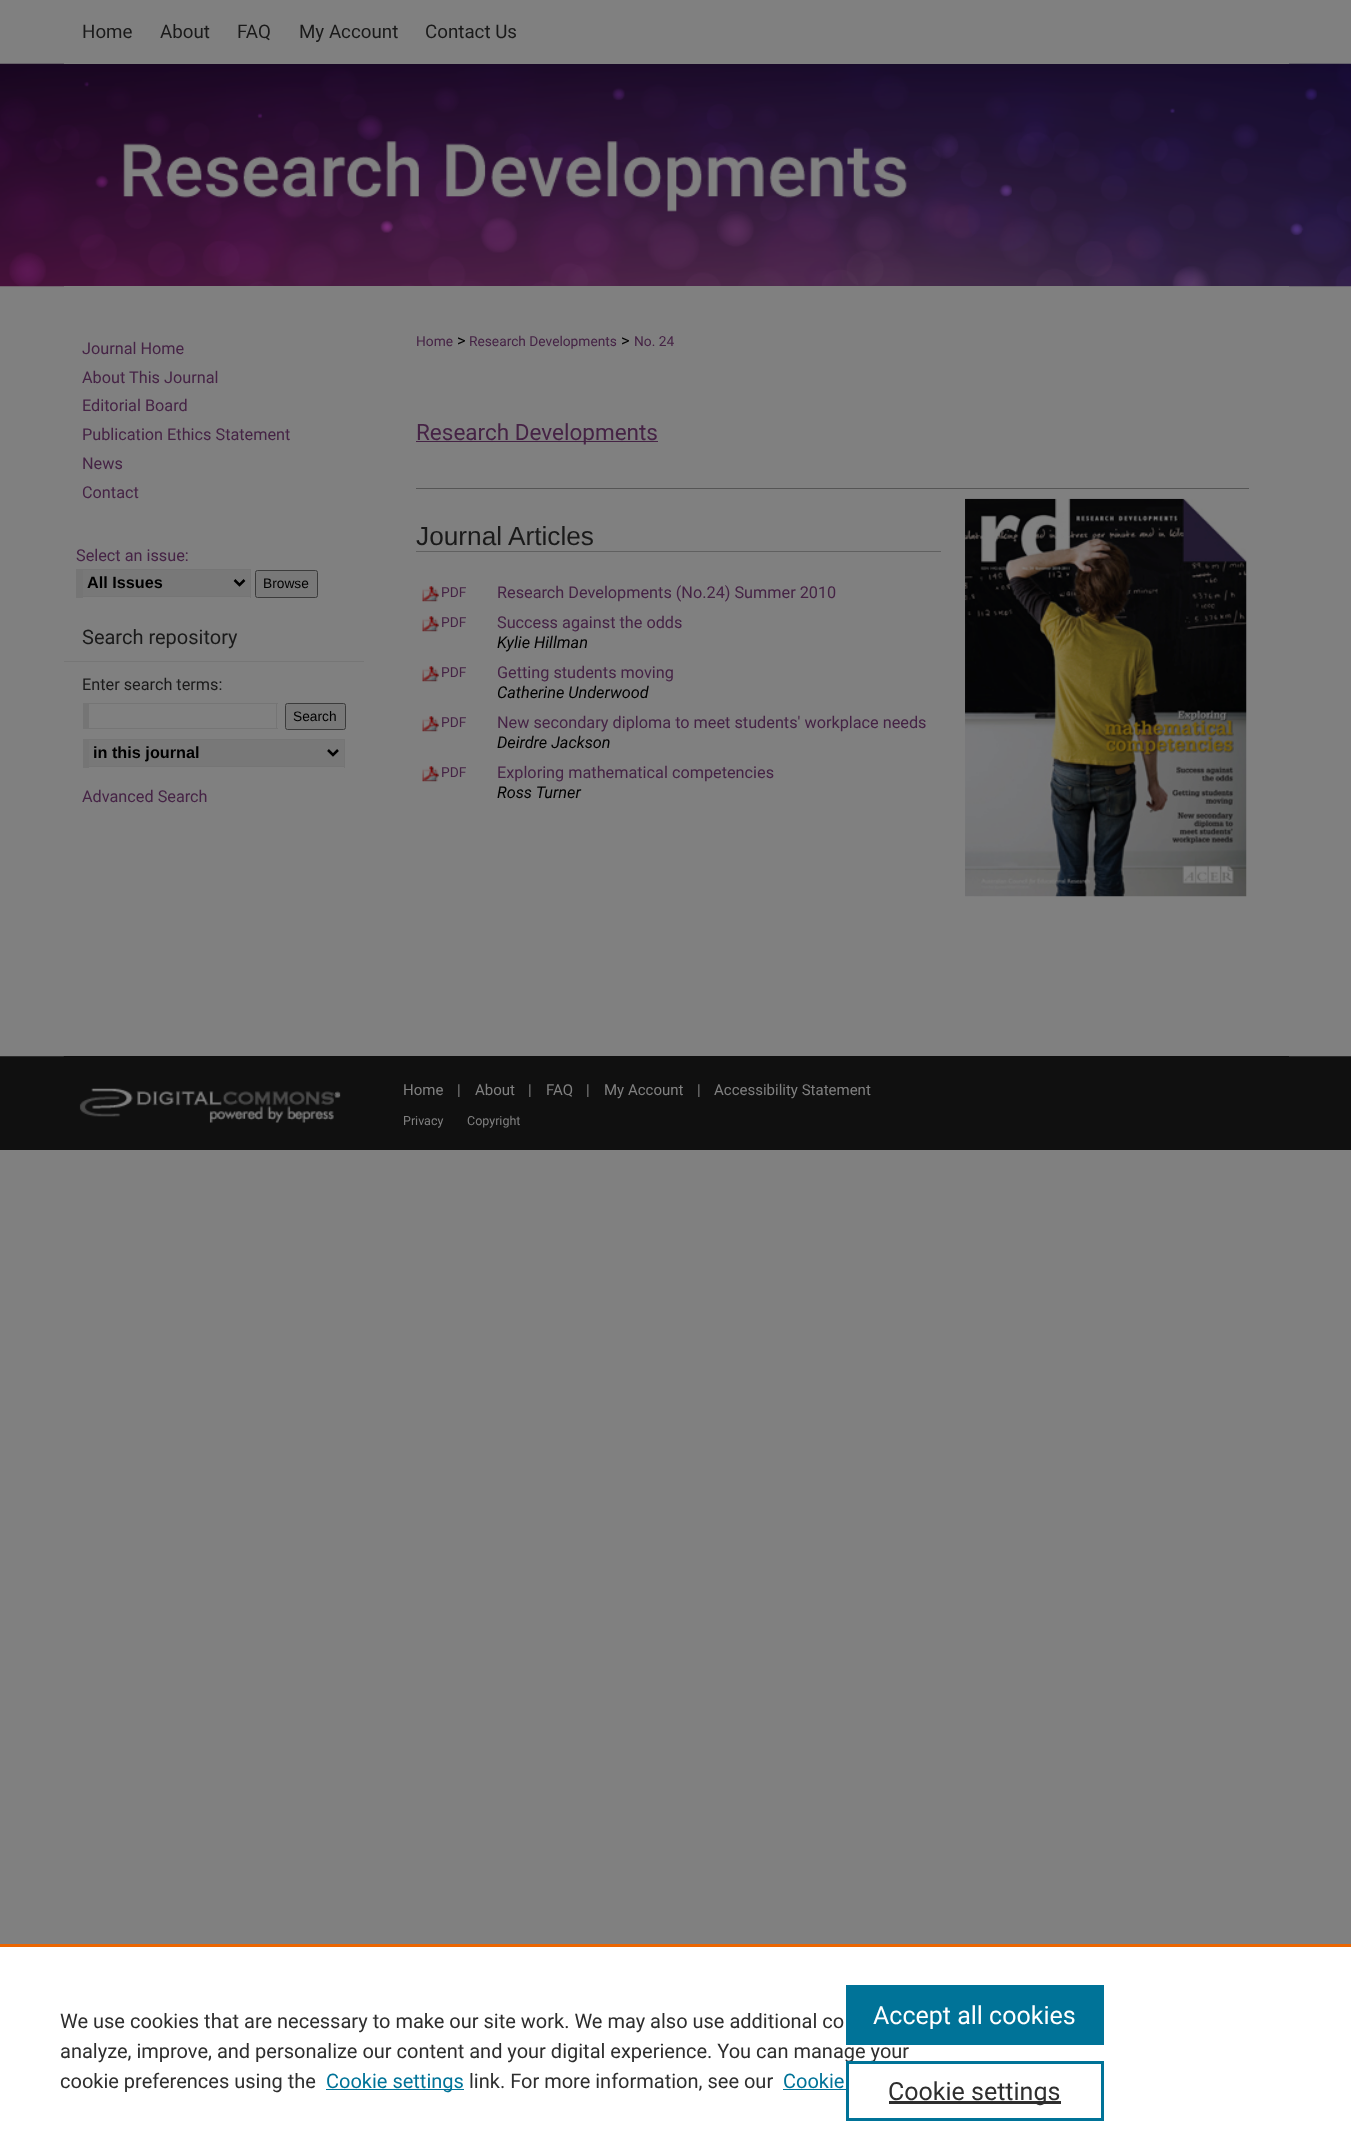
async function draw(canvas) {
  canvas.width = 1351
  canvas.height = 2156
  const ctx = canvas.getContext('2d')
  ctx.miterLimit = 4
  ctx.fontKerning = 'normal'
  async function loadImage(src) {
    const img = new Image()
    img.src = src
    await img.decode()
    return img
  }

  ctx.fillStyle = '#808080'
  ctx.fillRect(0, 0, 1351, 2156)
  ctx.drawImage(await loadImage('image0.png'), 0, 63, 1351, 1087)
  ctx.fillRect(64, 63, 1225, 1)
  ctx.font = '18.75px Roboto'
  ctx.fillStyle = '#1a1a1a'
  ctx.fillText('Home', 82, 38)
  ctx.fillText('About', 160, 38)
  ctx.fillText('FAQ', 237, 38)
  ctx.fillText('My Account', 299, 38)
  ctx.fillText('Contact Us', 425, 38)
  ctx.drawImage(await loadImage('image1.png'), 123, 141, 784, 71)
  ctx.fillStyle = '#808080'
  ctx.fillRect(64, 286, 1225, 1)
  ctx.font = '16.25px Roboto'
  ctx.fillStyle = '#452345'
  ctx.fillText('Journal Home', 82, 354)
  ctx.fillText('About This Journal', 82, 383)
  ctx.fillText('Editorial Board', 82, 411)
  ctx.fillText('Publication Ethics Statement', 82, 440)
  ctx.fillText('News', 82, 469)
  ctx.fillText('Contact', 82, 498)
  ctx.fillText('Select an issue:', 76, 561)
  ctx.fillStyle = '#787878'
  ctx.fillRect(83, 570, 167, 26)
  ctx.fillStyle = '#757575'
  ctx.fillRect(76, 569, 175, 1)
  ctx.fillRect(250, 569, 1, 29)
  ctx.fillRect(76, 596, 175, 1)
  ctx.fillRect(76, 569, 7, 29)
  ctx.beginPath()
  ctx.moveTo(234.5, 580)
  ctx.lineTo(239.5, 585)
  ctx.lineTo(244.5, 580)
  ctx.strokeStyle = '#000'
  ctx.lineWidth = 2.5
  ctx.stroke()
  ctx.font = 'bold 16.25px Liberation Sans'
  ctx.fillStyle = '#000'
  ctx.fillText('All Issues', 87, 588)
  ctx.fillStyle = '#787878'
  ctx.beginPath()
  ctx.roundRect(255.5, 570.5, 62, 27, 2)
  ctx.fill()
  ctx.strokeStyle = '#3b3b3b'
  ctx.lineWidth = 1
  ctx.stroke()
  ctx.font = '13.75px Liberation Sans'
  ctx.fillStyle = '#000'
  ctx.fillText('Browse', 263, 588)
  ctx.fillStyle = '#767676'
  ctx.fillRect(64, 661, 300, 1)
  ctx.font = '20px Roboto'
  ctx.fillStyle = '#1a1a1a'
  ctx.fillText('Search repository', 82, 644)
  ctx.font = '16.25px Roboto'
  ctx.fillText('Enter search terms:', 82, 690)
  ctx.fillStyle = '#757575'
  ctx.fillRect(83, 703, 195, 1)
  ctx.fillRect(276, 703, 1, 26)
  ctx.fillRect(83, 728, 195, 1)
  ctx.fillRect(83, 703, 6, 26)
  ctx.fillStyle = '#787878'
  ctx.beginPath()
  ctx.roundRect(285.5, 703.5, 60, 26, 2)
  ctx.fill()
  ctx.stroke()
  ctx.font = '13.75px Liberation Sans'
  ctx.fillStyle = '#000'
  ctx.fillText('Search', 293, 721)
  ctx.fillStyle = '#787878'
  ctx.fillRect(89, 740, 255, 26)
  ctx.fillStyle = '#757575'
  ctx.fillRect(83, 739, 262, 1)
  ctx.fillRect(344, 739, 1, 29)
  ctx.fillRect(83, 766, 262, 1)
  ctx.fillRect(83, 739, 6, 29)
  ctx.beginPath()
  ctx.moveTo(328, 750)
  ctx.lineTo(333, 755)
  ctx.lineTo(338, 750)
  ctx.strokeStyle = '#000'
  ctx.lineWidth = 2.5
  ctx.stroke()
  ctx.font = 'bold 16.25px Liberation Sans'
  ctx.fillStyle = '#000'
  ctx.fillText('in this journal', 93, 758)
  ctx.font = '16.25px Roboto'
  ctx.fillStyle = '#452345'
  ctx.fillText('Advanced Search', 82, 802)
  ctx.font = '13.75px Roboto'
  ctx.fillText('Home', 416, 346)
  ctx.font = '16.25px Roboto'
  ctx.fillStyle = '#000'
  ctx.fillText('>', 457, 346)
  ctx.font = '13.75px Roboto'
  ctx.fillStyle = '#452345'
  ctx.fillText('Research Developments', 469, 346)
  ctx.font = '16.25px Roboto'
  ctx.fillStyle = '#000'
  ctx.fillText('>', 621, 346)
  ctx.font = '13.75px Roboto'
  ctx.fillStyle = '#452345'
  ctx.fillText('No. 24', 634, 346)
  ctx.fillRect(416, 441, 242, 1)
  ctx.font = '22.5px Roboto'
  ctx.fillText('Research Developments', 416, 440)
  ctx.fillStyle = '#555'
  ctx.fillRect(416, 488, 833, 1)
  ctx.fillStyle = '#606060'
  ctx.fillRect(416, 551, 525, 1)
  ctx.font = '26.25px Liberation Sans'
  ctx.fillStyle = '#1a1a1a'
  ctx.fillText('Journal Articles', 416, 545)
  ctx.drawImage(await loadImage('image2.png'), 422, 586, 17, 16)
  ctx.font = '13.75px Roboto'
  ctx.fillStyle = '#452345'
  ctx.fillText('PDF', 441, 597)
  ctx.font = '16.25px Roboto'
  ctx.fillText('Research Developments (No.24) Summer 2010', 497, 598)
  ctx.drawImage(await loadImage('image3.png'), 422, 616, 17, 16)
  ctx.font = '13.75px Roboto'
  ctx.fillText('PDF', 441, 627)
  ctx.font = '16.25px Roboto'
  ctx.fillText('Success against the odds', 497, 628)
  ctx.font = 'italic 16.25px Roboto'
  ctx.fillStyle = '#000'
  ctx.fillText('Kylie Hillman', 497, 648)
  ctx.drawImage(await loadImage('image3.png'), 422, 666, 17, 16)
  ctx.font = '13.75px Roboto'
  ctx.fillStyle = '#452345'
  ctx.fillText('PDF', 441, 677)
  ctx.font = '16.25px Roboto'
  ctx.fillText('Getting students moving', 497, 678)
  ctx.font = 'italic 16.25px Roboto'
  ctx.fillStyle = '#000'
  ctx.fillText('Catherine Underwood', 497, 698)
  ctx.drawImage(await loadImage('image3.png'), 422, 716, 17, 16)
  ctx.font = '13.75px Roboto'
  ctx.fillStyle = '#452345'
  ctx.fillText('PDF', 441, 727)
  ctx.font = '16.25px Roboto'
  ctx.fillText('New secondary diploma to meet students\' workplace needs', 497, 728)
  ctx.font = 'italic 16.25px Roboto'
  ctx.fillStyle = '#000'
  ctx.fillText('Deirdre Jackson', 497, 748)
  ctx.drawImage(await loadImage('image3.png'), 422, 766, 17, 16)
  ctx.font = '13.75px Roboto'
  ctx.fillStyle = '#452345'
  ctx.fillText('PDF', 441, 777)
  ctx.font = '16.25px Roboto'
  ctx.fillText('Exploring mathematical competencies', 497, 778)
  ctx.font = 'italic 16.25px Roboto'
  ctx.fillStyle = '#000'
  ctx.fillText('Ross Turner', 497, 798)
  ctx.drawImage(await loadImage('image4.png'), 965, 498, 282, 399)
  ctx.fillStyle = '#101010'
  ctx.fillRect(64, 1056, 1225, 1)
  ctx.drawImage(await loadImage('image5.png'), 63, 1056, 278, 67)
  ctx.font = '15px Roboto'
  ctx.fillStyle = '#808080'
  ctx.fillText('Home', 403, 1095)
  ctx.fillText('|', 457, 1095)
  ctx.fillText('About', 475, 1095)
  ctx.fillText('|', 528, 1095)
  ctx.fillText('FAQ', 546, 1095)
  ctx.fillText('|', 586, 1095)
  ctx.fillText('My Account', 604, 1095)
  ctx.fillText('|', 697, 1095)
  ctx.fillText('Accessibility Statement', 714, 1095)
  ctx.font = '12.5px Roboto'
  ctx.fillText('Privacy', 403, 1125)
  ctx.fillText('Copyright', 467, 1125)
  ctx.fillStyle = '#fff'
  ctx.fillRect(0, 1947, 1351, 209)
  ctx.fillStyle = '#eb6500'
  ctx.fillRect(0, 1944, 1351, 3)
  ctx.font = '20px Roboto'
  ctx.fillStyle = '#2e2e2e'
  ctx.fillText('We use cookies that are necessary to make our site work. We may also use additional co', 60, 2028)
  ctx.fillText('analyze, improve, and personalize our content and your digital experience. You can manage your', 60, 2058)
  ctx.fillText('cookie preferences using the', 60, 2088)
  ctx.fillStyle = '#007398'
  ctx.fillRect(326, 2089, 138, 1)
  ctx.fillText('Cookie settings', 326, 2088)
  ctx.fillStyle = '#2e2e2e'
  ctx.fillText('link. For more information, see our', 469, 2088)
  ctx.fillStyle = '#007398'
  ctx.fillText('Cookie', 783, 2088)
  ctx.fillRect(783, 2089, 63, 1)
  ctx.fillRect(846, 1985, 258, 60)
  ctx.font = '25px Roboto'
  ctx.fillStyle = '#fff'
  ctx.fillText('Accept all cookies', 873, 2024)
  ctx.strokeStyle = '#007398'
  ctx.lineWidth = 3
  ctx.strokeRect(847.5, 2062.5, 255, 57)
  ctx.fillStyle = '#2e2e2e'
  ctx.fillRect(889, 2101, 172, 3)
  ctx.fillText('Cookie settings', 888, 2100)
}

draw(document.querySelector('canvas'))
